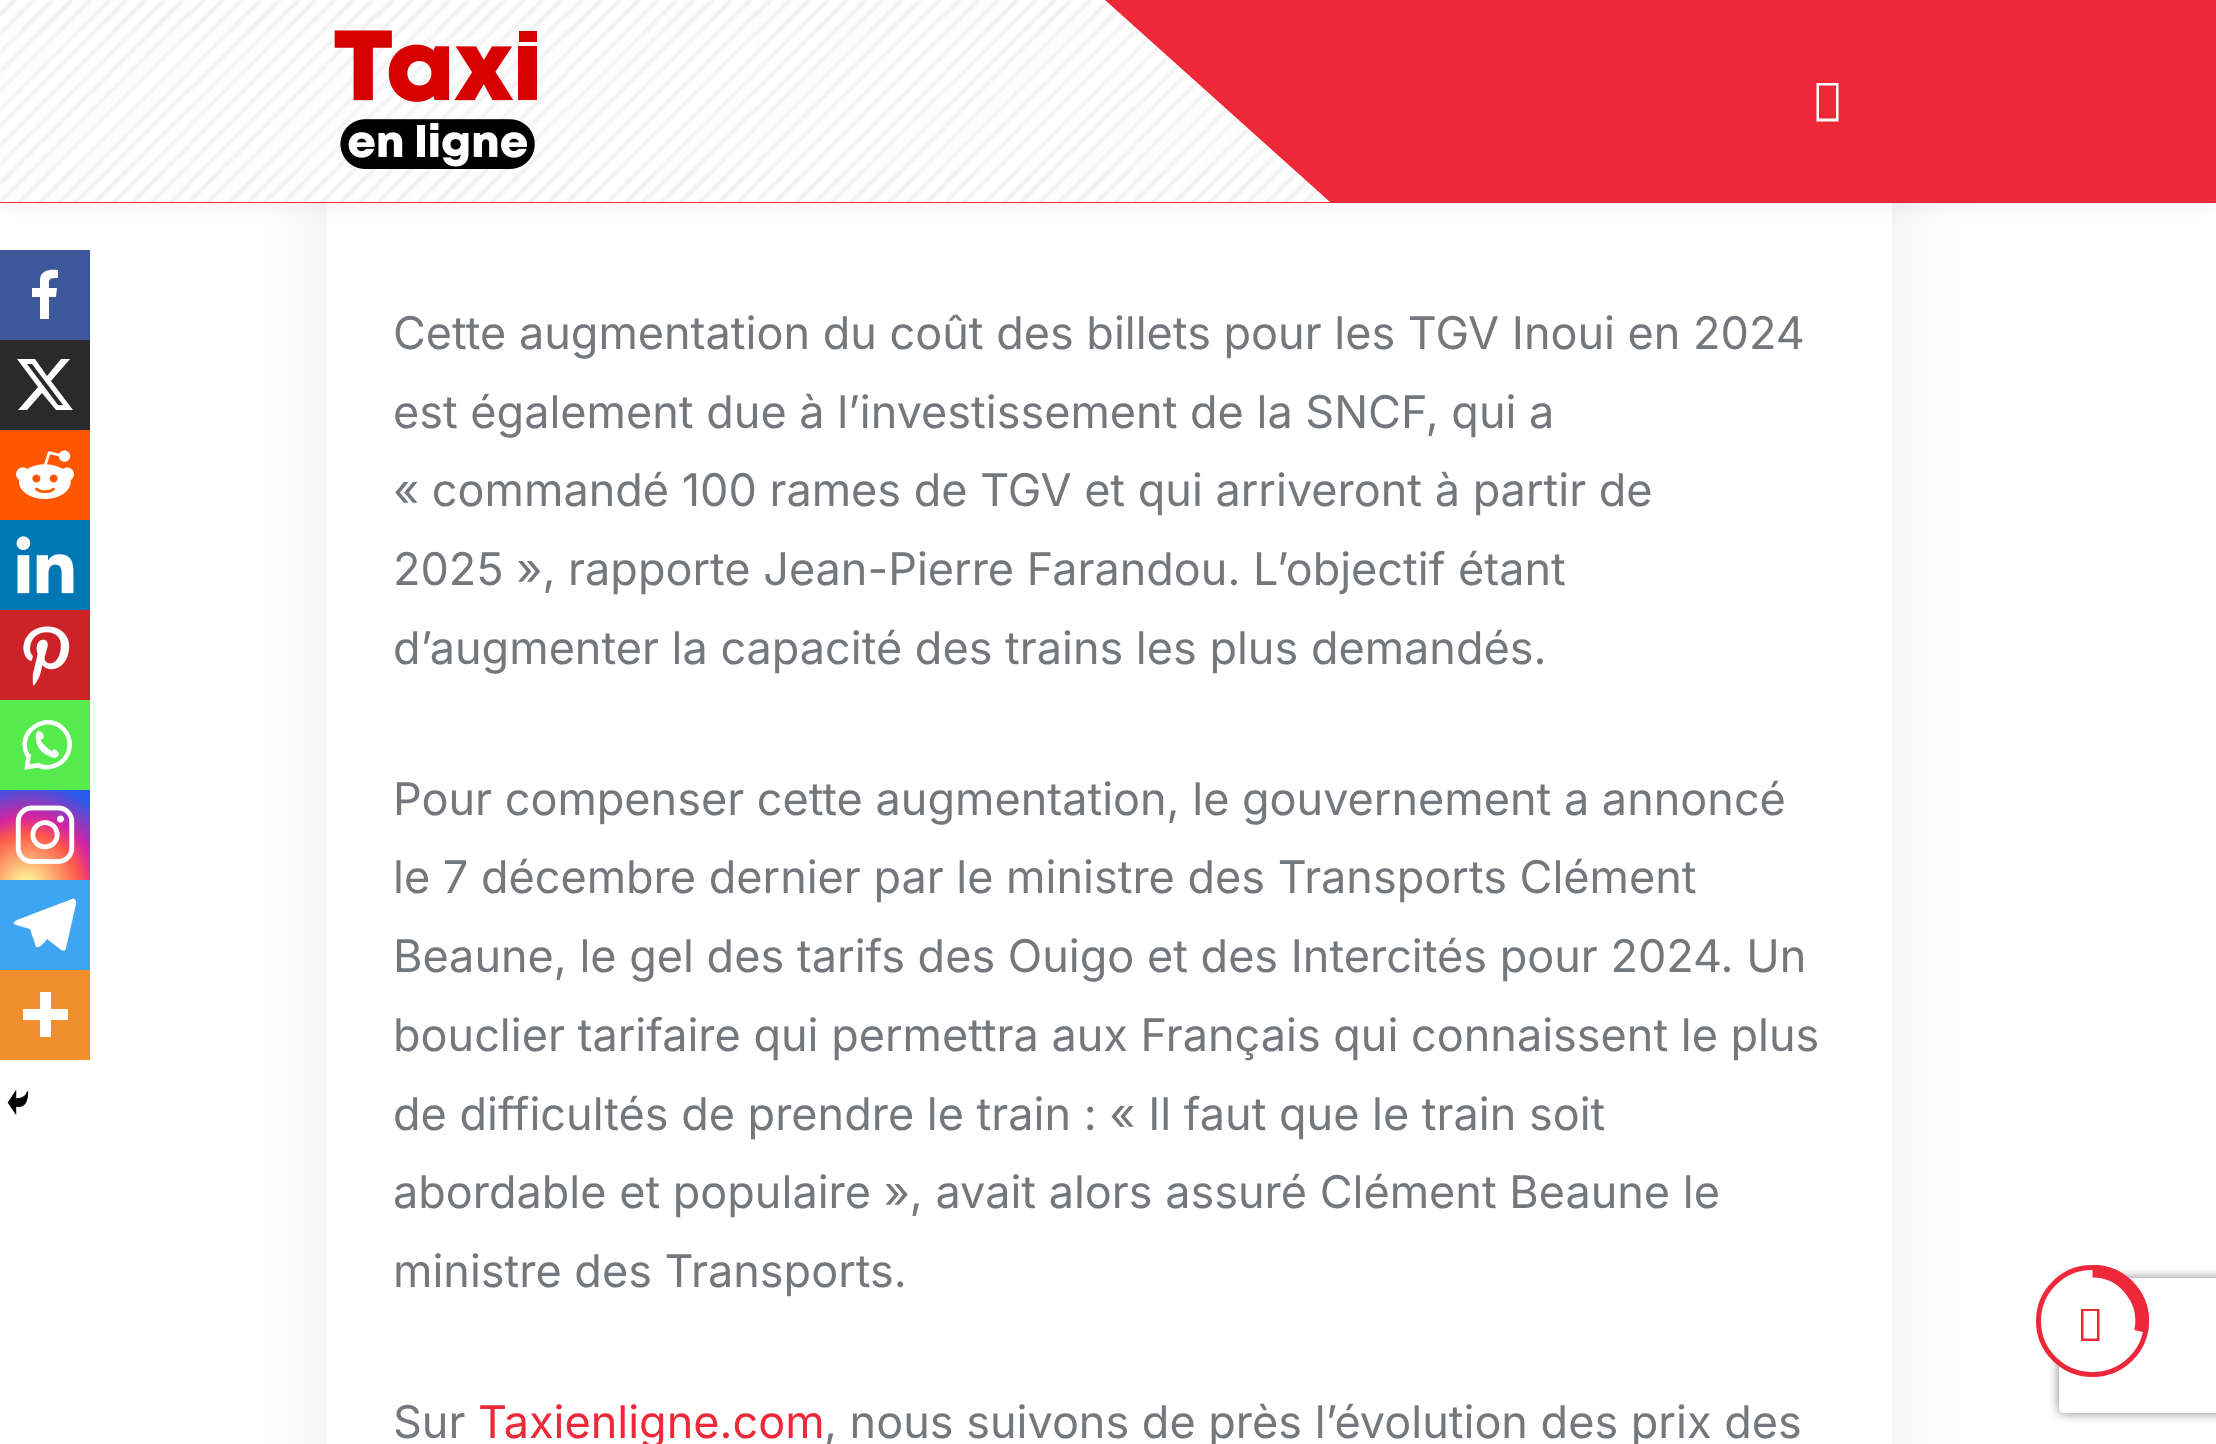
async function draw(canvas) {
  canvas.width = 2216
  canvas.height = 1444
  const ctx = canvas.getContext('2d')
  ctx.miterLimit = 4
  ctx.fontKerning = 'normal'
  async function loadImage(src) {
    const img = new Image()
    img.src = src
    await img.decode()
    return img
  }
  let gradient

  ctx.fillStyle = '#fff'
  ctx.fillRect(0, 0, 2216, 1444)
  ctx.fillStyle = '#00000014'
  ctx.filter = 'blur(45px)'
  ctx.beginPath()
  ctx.rect(326, -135, 1566, 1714)
  ctx.fill()
  ctx.filter = 'none'
  ctx.fillStyle = '#fff'
  ctx.fillRect(326, 203, 1566, 1241)
  ctx.fillStyle = '#00000012'
  ctx.filter = 'blur(11px)'
  ctx.beginPath()
  ctx.rect(0, 0, 2216, 203)
  ctx.fill()
  ctx.filter = 'none'
  ctx.fillStyle = '#ed2939'
  ctx.fillRect(0, 0, 2216, 203)
  ctx.fillStyle = '#fff'
  ctx.beginPath()
  ctx.moveTo(0, 0)
  ctx.lineTo(0, 202)
  ctx.lineTo(1330, 202)
  ctx.lineTo(1105, 0)
  ctx.closePath()
  ctx.fill()
  ctx.drawImage(await loadImage('image0.png'), 0, 0, 1327, 202)
  ctx.drawImage(await loadImage('image1.png'), 334, 30, 203, 139)
  ctx.beginPath()
  ctx.moveTo(1816.5, 121.5)
  ctx.lineTo(1816.5, 83)
  ctx.lineTo(1838.5, 83)
  ctx.lineTo(1838.5, 121.5)
  ctx.closePath()
  ctx.moveTo(1819, 118.5)
  ctx.lineTo(1836, 118.5)
  ctx.lineTo(1836, 85.5)
  ctx.lineTo(1819, 85.5)
  ctx.closePath()
  ctx.fill()
  ctx.fillStyle = '#3c589a'
  ctx.fillRect(0, 250, 90, 90)
  ctx.fillStyle = '#fff'
  ctx.beginPath()
  ctx.moveTo(49, 319)
  ctx.lineTo(49, 297)
  ctx.lineTo(56, 297)
  ctx.lineTo(57, 288)
  ctx.lineTo(49, 288)
  ctx.bezierCurveTo(49, 279, 48, 278, 58, 278)
  ctx.lineTo(58, 270)
  ctx.bezierCurveTo(50, 269, 41, 270, 40, 279)
  ctx.lineTo(40, 288)
  ctx.lineTo(32, 288)
  ctx.lineTo(32, 297)
  ctx.lineTo(40, 297)
  ctx.lineTo(40, 319)
  ctx.closePath()
  ctx.fill()
  ctx.fillStyle = '#2a2a2a'
  ctx.fillRect(0, 340, 90, 90)
  ctx.fillStyle = '#fff'
  ctx.beginPath()
  ctx.moveTo(61, 359)
  ctx.lineTo(70, 359)
  ctx.lineTo(51, 381)
  ctx.lineTo(73, 410)
  ctx.lineTo(56, 410)
  ctx.lineTo(42, 393)
  ctx.lineTo(27, 410)
  ctx.lineTo(18, 410)
  ctx.lineTo(38, 387)
  ctx.lineTo(17, 359)
  ctx.lineTo(35, 359)
  ctx.lineTo(47, 376)
  ctx.closePath()
  ctx.moveTo(58, 405)
  ctx.lineTo(63, 405)
  ctx.lineTo(32, 364)
  ctx.lineTo(27, 364)
  ctx.closePath()
  ctx.fill()
  ctx.fillStyle = '#ff5700'
  ctx.fillRect(0, 430, 90, 90)
  ctx.drawImage(await loadImage('image2.png'), 16, 450, 58, 50)
  ctx.fillStyle = '#0077b5'
  ctx.fillRect(0, 520, 90, 90)
  ctx.drawImage(await loadImage('image3.png'), 16, 536, 58, 58)
  ctx.fillStyle = '#cc2329'
  ctx.fillRect(0, 610, 90, 90)
  ctx.drawImage(await loadImage('image4.png'), 23, 626, 47, 60)
  ctx.fillStyle = '#55eb4c'
  ctx.fillRect(0, 700, 90, 90)
  ctx.beginPath()
  ctx.moveTo(39.5, 766)
  ctx.bezierCurveTo(51.5, 770, 64.5, 763.5, 68.5, 752)
  ctx.bezierCurveTo(70.5, 745.5, 70, 738.5, 66.5, 733)
  ctx.bezierCurveTo(50, 707, 11.5, 733, 29, 757.5)
  ctx.moveTo(29, 754)
  ctx.lineTo(27, 767)
  ctx.lineTo(40.5, 765)
  ctx.strokeStyle = '#fff'
  ctx.lineWidth = 4.5
  ctx.stroke()
  ctx.fillStyle = '#fff'
  ctx.beginPath()
  ctx.moveTo(36, 733.5)
  ctx.bezierCurveTo(34.5, 745.5, 40.5, 754, 54, 758)
  ctx.bezierCurveTo(65, 756, 54, 745, 52, 751.5)
  ctx.bezierCurveTo(46, 747, 42, 743, 40.5, 740)
  ctx.bezierCurveTo(49.5, 736, 38, 729, 38, 731)
  ctx.fill()
  gradient = ctx.createRadialGradient(27, 886, 0, 27, 886, 115)
  gradient.addColorStop(0, '#fdf497')
  gradient.addColorStop(0.05, '#fdf497')
  gradient.addColorStop(0.45, '#fd5949')
  gradient.addColorStop(0.6, '#d6249f')
  gradient.addColorStop(0.9, '#285aeb')
  ctx.fillStyle = gradient
  ctx.fillRect(0, 790, 90, 90)
  ctx.drawImage(await loadImage('image5.png'), 15, 805, 60, 59)
  ctx.fillStyle = '#3da5f1'
  ctx.fillRect(0, 880, 90, 90)
  ctx.fillStyle = '#fff'
  ctx.beginPath()
  ctx.moveTo(72, 899)
  ctx.lineTo(17, 920)
  ctx.bezierCurveTo(13, 922, 13, 924, 16, 925)
  ctx.lineTo(30, 929)
  ctx.lineTo(36, 947)
  ctx.bezierCurveTo(39, 949, 46, 941, 47, 939)
  ctx.lineTo(61, 950)
  ctx.bezierCurveTo(64, 951, 66, 951, 66, 948)
  ctx.lineTo(76, 904)
  ctx.bezierCurveTo(77, 900, 74, 898, 72, 899)
  ctx.closePath()
  ctx.fill()
  ctx.fillStyle = '#ee8e2d'
  ctx.fillRect(0, 970, 90, 90)
  ctx.fillStyle = '#fff'
  ctx.beginPath()
  ctx.moveTo(51, 1009)
  ctx.lineTo(51, 992)
  ctx.lineTo(40, 992)
  ctx.lineTo(40, 1009)
  ctx.lineTo(23, 1009)
  ctx.lineTo(23, 1020)
  ctx.lineTo(40, 1020)
  ctx.lineTo(40, 1037)
  ctx.lineTo(51, 1037)
  ctx.lineTo(51, 1020)
  ctx.lineTo(68, 1020)
  ctx.lineTo(68, 1009)
  ctx.closePath()
  ctx.fill('evenodd')
  ctx.drawImage(await loadImage('image6.png'), 7, 1089, 22, 27)
  ctx.font = '45px Inter'
  ctx.fillStyle = '#74787c'
  ctx.fillText('Cette augmentation du coût des billets pour les TGV Inoui en 2024', 393, 349)
  ctx.fillText('est également due à l’investissement de la SNCF, qui a', 393, 428)
  ctx.fillText('« commandé 100 rames de TGV et qui arriveront à partir de', 393, 506)
  ctx.fillText('2025 », rapporte Jean-Pierre Farandou. L’objectif étant', 393, 585)
  ctx.fillText('d’augmenter la capacité des trains les plus demandés.', 393, 664)
  ctx.fillText('Pour compenser cette augmentation, le gouvernement a annoncé', 393, 815)
  ctx.fillText('le 7 décembre dernier par le ministre des Transports Clément', 393, 893)
  ctx.fillText('Beaune, le gel des tarifs des Ouigo et des Intercités pour 2024. Un', 393, 972)
  ctx.fillText('bouclier tarifaire qui permettra aux Français qui connaissent le plus', 393, 1051)
  ctx.fillText('de difficultés de prendre le train : « Il faut que le train soit', 393, 1130)
  ctx.fillText('abordable et populaire », avait alors assuré Clément Beaune le', 393, 1208)
  ctx.fillText('ministre des Transports.', 393, 1287)
  ctx.fillText('Sur', 393, 1438)
  ctx.fillStyle = '#ed2939'
  ctx.fillText('Taxienligne.com', 478, 1438)
  ctx.fillStyle = '#74787c'
  ctx.fillText(', nous suivons de près l’évolution des prix des', 824, 1438)
  ctx.save()
  ctx.beginPath()
  ctx.moveTo(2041, 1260)
  ctx.lineTo(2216, 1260)
  ctx.lineTo(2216, 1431)
  ctx.lineTo(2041, 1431)
  ctx.closePath()
  ctx.moveTo(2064, 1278)
  ctx.lineTo(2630, 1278)
  ctx.bezierCurveTo(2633, 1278, 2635, 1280, 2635, 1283)
  ctx.lineTo(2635, 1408)
  ctx.bezierCurveTo(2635, 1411, 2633, 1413, 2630, 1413)
  ctx.lineTo(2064, 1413)
  ctx.bezierCurveTo(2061, 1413, 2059, 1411, 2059, 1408)
  ctx.lineTo(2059, 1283)
  ctx.bezierCurveTo(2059, 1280, 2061, 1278, 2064, 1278)
  ctx.closePath()
  ctx.clip('evenodd')
  ctx.fillStyle = '#808080'
  ctx.filter = 'blur(5.5px)'
  ctx.beginPath()
  ctx.roundRect(2059, 1278, 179, 135, 5)
  ctx.fill()
  ctx.filter = 'none'
  ctx.restore()
  ctx.fillStyle = '#fff'
  ctx.beginPath()
  ctx.roundRect(2036, 1265, 113, 112, 56)
  ctx.fill()
  ctx.save()
  ctx.beginPath()
  ctx.roundRect(2036, 1265, 113, 112, 56)
  ctx.clip()
  ctx.beginPath()
  ctx.moveTo(2092.5, 1266.5)
  ctx.bezierCurveTo(2127, 1266.5, 2152.5, 1299.5, 2145, 1332.5)
  ctx.strokeStyle = '#ed2939'
  ctx.lineWidth = 22.1
  ctx.stroke()
  ctx.restore()
  ctx.beginPath()
  ctx.roundRect(2038.5, 1267.5, 108, 107, 53.5)
  ctx.strokeStyle = '#ed2939'
  ctx.lineWidth = 5
  ctx.stroke()
  ctx.fillStyle = '#ed2939'
  ctx.beginPath()
  ctx.moveTo(2081, 1341)
  ctx.lineTo(2081, 1309)
  ctx.lineTo(2099.5, 1309)
  ctx.lineTo(2099.5, 1341)
  ctx.closePath()
  ctx.moveTo(2083.5, 1338.5)
  ctx.lineTo(2097, 1338.5)
  ctx.lineTo(2097, 1311)
  ctx.lineTo(2083.5, 1311)
  ctx.closePath()
  ctx.fill()
}

draw(document.querySelector('canvas'))
